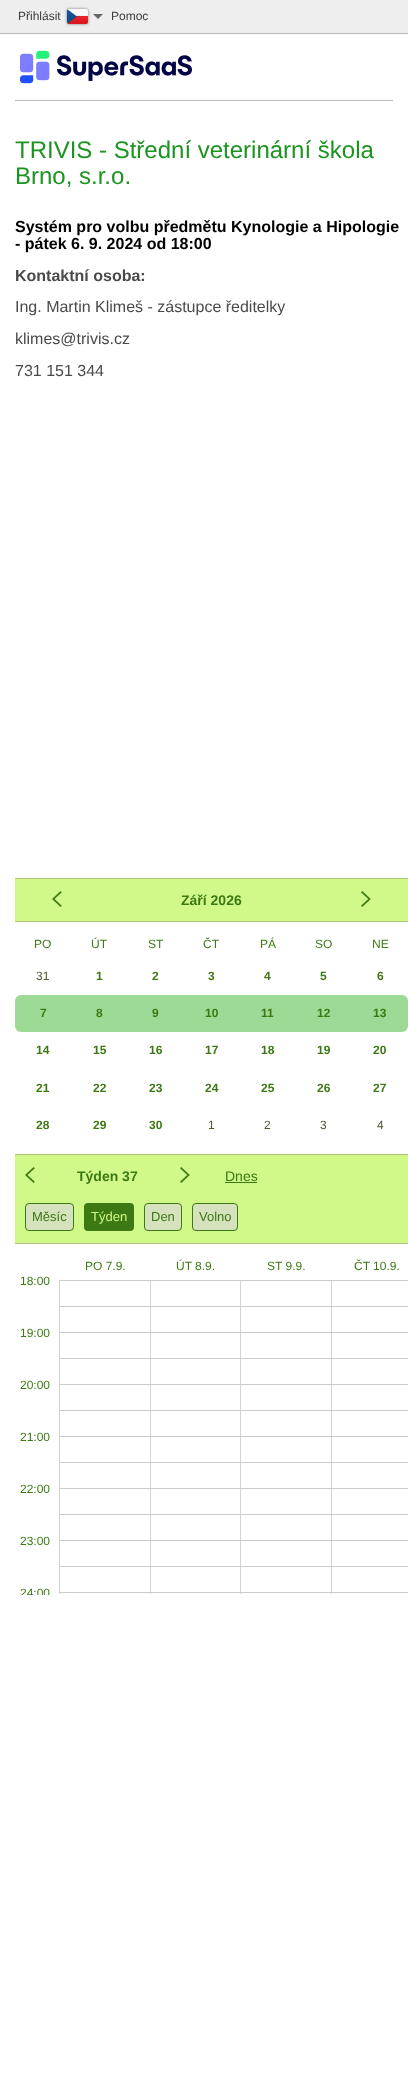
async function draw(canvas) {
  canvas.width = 408
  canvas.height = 2076
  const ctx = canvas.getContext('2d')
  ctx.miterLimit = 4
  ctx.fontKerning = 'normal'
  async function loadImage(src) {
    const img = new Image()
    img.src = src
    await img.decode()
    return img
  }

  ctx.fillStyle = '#fff'
  ctx.fillRect(0, 0, 408, 2076)
  ctx.fillStyle = '#eee'
  ctx.fillRect(0, 0, 408, 33)
  ctx.fillStyle = '#b7b5b5'
  ctx.fillRect(0, 33, 408, 1)
  ctx.font = '12px Liberation Sans'
  ctx.fillStyle = '#3c3c3d'
  ctx.fillText('Přihlásit', 18, 20)
  ctx.fillStyle = '#777'
  ctx.filter = 'blur(1.5px)'
  ctx.beginPath()
  ctx.roundRect(67, 9, 21, 15, 2)
  ctx.fill()
  ctx.filter = 'none'
  ctx.drawImage(await loadImage('image0.png'), 67, 9, 21, 15)
  ctx.fillStyle = '#666'
  ctx.beginPath()
  ctx.moveTo(93, 14)
  ctx.lineTo(103, 14)
  ctx.lineTo(98, 19)
  ctx.closePath()
  ctx.fill()
  ctx.fillStyle = '#3c3c3d'
  ctx.fillText('Pomoc', 111, 20)
  ctx.drawImage(await loadImage('image1.png'), 20, 50, 172, 34)
  ctx.fillStyle = '#bdbdbd'
  ctx.fillRect(15, 100, 378, 1)
  ctx.font = '24px Liberation Sans'
  ctx.fillStyle = '#1b9421'
  ctx.fillText('TRIVIS - Střední veterinární škola', 15, 158)
  ctx.fillText('Brno, s.r.o.', 15, 184)
  ctx.font = 'bold 16px Liberation Sans'
  ctx.fillStyle = '#000'
  ctx.fillText('Systém pro volbu předmětu Kynologie a Hipologie', 15, 232)
  ctx.fillText('- pátek 6. 9. 2024 od 18:00', 15, 249)
  ctx.fillStyle = '#4a4a4a'
  ctx.fillText('Kontaktní osoba:', 15, 281)
  ctx.font = '16px Liberation Sans'
  ctx.fillText('Ing. Martin Klimeš - zástupce ředitelky', 15, 312)
  ctx.fillText('klimes@trivis.cz', 15, 344)
  ctx.fillText('731 151 344', 15, 376)
  ctx.fillStyle = '#d0f989'
  ctx.fillRect(15, 879, 393, 42)
  ctx.fillStyle = '#adc27d'
  ctx.fillRect(15, 878, 393, 1)
  ctx.fillRect(15, 921, 393, 1)
  ctx.drawImage(await loadImage('image2.png'), 52, 891, 10, 16)
  ctx.font = 'bold 14px Liberation Sans'
  ctx.fillStyle = '#3d7913'
  ctx.fillText('Září 2026', 181, 905)
  ctx.drawImage(await loadImage('image3.png'), 361, 891, 10, 16)
  ctx.font = '12px Liberation Sans'
  ctx.fillText('PO', 34, 948)
  ctx.fillText('ÚT', 91, 948)
  ctx.fillText('ST', 148, 948)
  ctx.fillText('ČT', 203, 948)
  ctx.fillText('PÁ', 260, 948)
  ctx.fillText('SO', 315, 948)
  ctx.fillText('NE', 372, 948)
  ctx.fillStyle = '#4f5636'
  ctx.fillText('31', 36, 980)
  ctx.font = 'bold 12px Liberation Sans'
  ctx.fillStyle = '#3d7913'
  ctx.fillText('1', 96, 980)
  ctx.fillText('2', 152, 980)
  ctx.fillText('3', 208, 980)
  ctx.fillText('4', 264, 980)
  ctx.fillText('5', 320, 980)
  ctx.fillText('6', 377, 980)
  ctx.fillStyle = '#9dda95'
  ctx.beginPath()
  ctx.roundRect(15, 995, 56, 37, [6, 0, 0, 6])
  ctx.fill()
  ctx.fillStyle = '#3d7913'
  ctx.fillText('7', 40, 1017)
  ctx.fillStyle = '#9dda95'
  ctx.fillRect(71, 995, 281, 37)
  ctx.fillStyle = '#3d7913'
  ctx.fillText('8', 96, 1017)
  ctx.fillText('9', 152, 1017)
  ctx.fillText('10', 205, 1017)
  ctx.fillText('11', 261, 1017)
  ctx.fillText('12', 317, 1017)
  ctx.fillStyle = '#9dda95'
  ctx.beginPath()
  ctx.roundRect(352, 995, 56, 37, [0, 6, 6, 0])
  ctx.fill()
  ctx.fillStyle = '#3d7913'
  ctx.fillText('13', 373, 1017)
  ctx.fillText('14', 36, 1054)
  ctx.fillText('15', 93, 1054)
  ctx.fillText('16', 149, 1054)
  ctx.fillText('17', 205, 1054)
  ctx.fillText('18', 261, 1054)
  ctx.fillText('19', 317, 1054)
  ctx.fillText('20', 373, 1054)
  ctx.fillText('21', 36, 1092)
  ctx.fillText('22', 93, 1092)
  ctx.fillText('23', 149, 1092)
  ctx.fillText('24', 205, 1092)
  ctx.fillText('25', 261, 1092)
  ctx.fillText('26', 317, 1092)
  ctx.fillText('27', 373, 1092)
  ctx.fillText('28', 36, 1129)
  ctx.fillText('29', 93, 1129)
  ctx.fillText('30', 149, 1129)
  ctx.font = '12px Liberation Sans'
  ctx.fillStyle = '#4f5636'
  ctx.fillText('1', 208, 1129)
  ctx.fillText('2', 264, 1129)
  ctx.fillText('3', 320, 1129)
  ctx.fillText('4', 377, 1129)
  ctx.fillStyle = '#d0f989'
  ctx.fillRect(15, 1155, 393, 88)
  ctx.fillStyle = '#adc27d'
  ctx.fillRect(15, 1154, 393, 1)
  ctx.fillRect(15, 1243, 393, 1)
  ctx.drawImage(await loadImage('image2.png'), 25, 1167, 10, 16)
  ctx.font = 'bold 14px Liberation Sans'
  ctx.fillStyle = '#3d7913'
  ctx.fillText('Týden 37', 77, 1181)
  ctx.drawImage(await loadImage('image3.png'), 180, 1167, 10, 16)
  ctx.font = '14px Liberation Sans'
  ctx.fillText('Dnes', 225, 1181)
  ctx.fillRect(225, 1182, 32, 1)
  ctx.fillStyle = '#d6e2bd'
  ctx.beginPath()
  ctx.roundRect(25.5, 1203.5, 48, 27, 3.5)
  ctx.fill()
  ctx.strokeStyle = '#3d7913'
  ctx.stroke()
  ctx.font = '13px Liberation Sans'
  ctx.fillStyle = '#3d7913'
  ctx.fillText('Měsíc', 32, 1221)
  ctx.beginPath()
  ctx.roundRect(84, 1203, 50, 28, 4)
  ctx.fill()
  ctx.fillStyle = '#d0f989'
  ctx.fillText('Týden', 91, 1221)
  ctx.fillStyle = '#d6e2bd'
  ctx.beginPath()
  ctx.roundRect(144.5, 1203.5, 37, 27, 3.5)
  ctx.fill()
  ctx.stroke()
  ctx.fillStyle = '#3d7913'
  ctx.fillText('Den', 151, 1221)
  ctx.fillStyle = '#d6e2bd'
  ctx.beginPath()
  ctx.roundRect(192.5, 1203.5, 45, 27, 3.5)
  ctx.fill()
  ctx.stroke()
  ctx.fillStyle = '#3d7913'
  ctx.fillText('Volno', 199, 1221)
  ctx.font = '12px Liberation Sans'
  ctx.fillText('PO 7.9.', 85, 1270)
  ctx.fillText('ÚT 8.9.', 176, 1270)
  ctx.fillText('ST 9.9.', 267, 1270)
  ctx.fillText('ČT 10.9.', 354, 1270)
  ctx.fillStyle = '#d4d4d4'
  ctx.fillRect(59, 1280, 1, 314)
  ctx.fillStyle = '#3d7913'
  ctx.fillText('18:00', 20, 1285)
  ctx.fillText('19:00', 20, 1337)
  ctx.fillText('20:00', 20, 1389)
  ctx.fillText('21:00', 20, 1441)
  ctx.fillText('22:00', 20, 1493)
  ctx.fillText('23:00', 20, 1545)
  ctx.save()
  ctx.beginPath()
  ctx.rect(15, 1244, 393, 351)
  ctx.clip()
  ctx.fillText('24:00', 20, 1597)
  ctx.restore()
  ctx.fillStyle = '#d4d4d4'
  ctx.fillRect(150, 1280, 1, 314)
  ctx.fillRect(240, 1280, 1, 314)
  ctx.fillRect(331, 1280, 1, 314)
  ctx.fillStyle = '#cbcbcb'
  ctx.fillRect(60, 1280, 348, 1)
  ctx.fillRect(60, 1306, 348, 1)
  ctx.fillRect(60, 1332, 348, 1)
  ctx.fillRect(60, 1358, 348, 1)
  ctx.fillRect(60, 1384, 348, 1)
  ctx.fillRect(60, 1410, 348, 1)
  ctx.fillRect(60, 1436, 348, 1)
  ctx.fillRect(60, 1462, 348, 1)
  ctx.fillRect(60, 1488, 348, 1)
  ctx.fillRect(60, 1514, 348, 1)
  ctx.fillRect(60, 1540, 348, 1)
  ctx.fillRect(60, 1566, 348, 1)
  ctx.fillRect(60, 1592, 348, 1)
}

draw(document.querySelector('canvas'))
